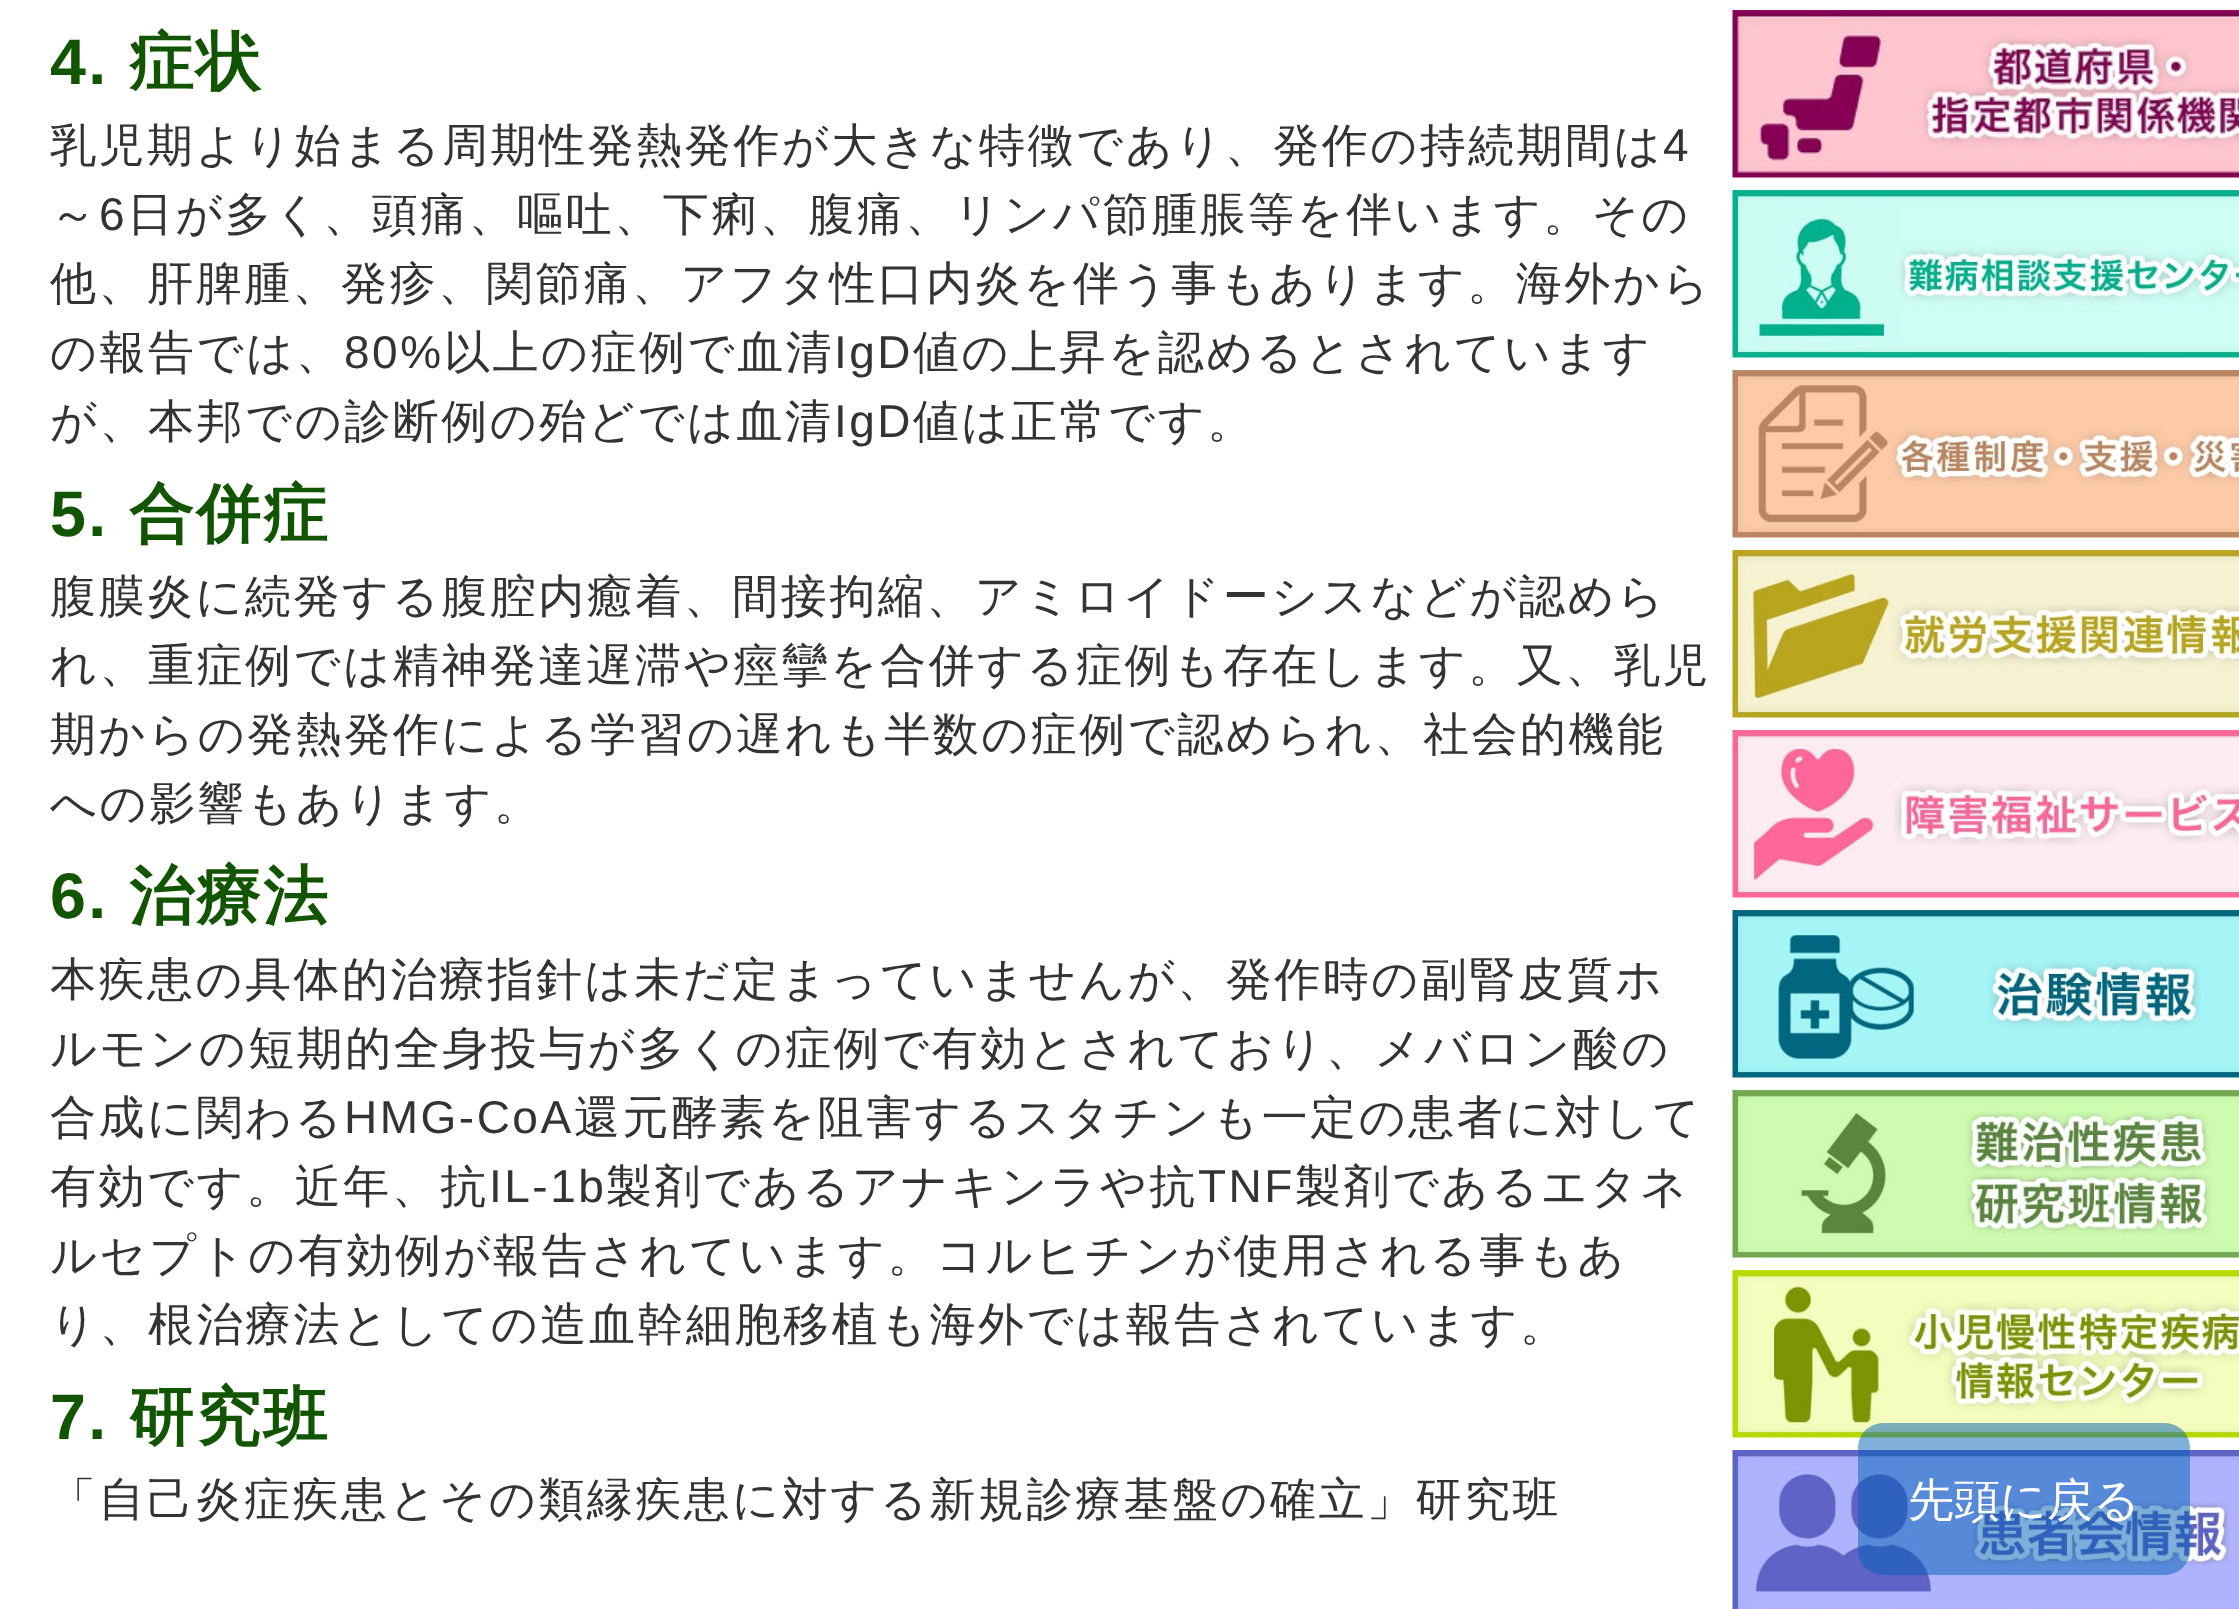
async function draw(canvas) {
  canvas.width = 2239
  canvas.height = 1609
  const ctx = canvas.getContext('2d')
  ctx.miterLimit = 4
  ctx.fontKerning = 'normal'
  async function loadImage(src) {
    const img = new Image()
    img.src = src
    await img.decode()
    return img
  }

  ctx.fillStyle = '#fff'
  ctx.fillRect(0, 0, 2239, 1609)
  ctx.drawImage(await loadImage('image0.png'), 1732, 10, 507, 168)
  ctx.drawImage(await loadImage('image1.png'), 1732, 190, 507, 168)
  ctx.drawImage(await loadImage('image2.png'), 1732, 370, 507, 168)
  ctx.drawImage(await loadImage('image3.png'), 1732, 550, 507, 168)
  ctx.drawImage(await loadImage('image4.png'), 1732, 730, 507, 168)
  ctx.drawImage(await loadImage('image5.png'), 1732, 910, 507, 168)
  ctx.drawImage(await loadImage('image6.png'), 1732, 1090, 507, 168)
  ctx.drawImage(await loadImage('image7.png'), 1732, 1270, 507, 168)
  ctx.drawImage(await loadImage('image8.png'), 1732, 1450, 507, 159)
  ctx.letterSpacing = '2.5px'
  ctx.font = 'bold 64.5px Liberation Sans'
  ctx.fillStyle = '#125500'
  ctx.fillText('4.', 50, 84)
  ctx.font = 'bold 64.5px WenQuanYi Zen Hei'
  ctx.fillText('症状', 129, 84)
  ctx.font = '500 46px WenQuanYi Zen Hei'
  ctx.fillStyle = '#333'
  ctx.fillText('乳児期より始まる周期性発熱発作が大きな特徴であり、発作の持続期間は', 50, 161)
  ctx.font = '46px Liberation Sans'
  ctx.fillText('4', 1663, 161)
  ctx.font = '500 46px WenQuanYi Zen Hei'
  ctx.fillText('～', 50, 230)
  ctx.font = '46px Liberation Sans'
  ctx.fillText('6', 99, 230)
  ctx.font = '500 46px WenQuanYi Zen Hei'
  ctx.fillText('日が多く、頭痛、嘔吐、下痢、腹痛、リンパ節腫脹等を伴います。その', 127, 230)
  ctx.fillText('他、肝脾腫、発疹、関節痛、アフタ性口内炎を伴う事もあります。海外から', 50, 299)
  ctx.fillText('の報告では、', 50, 368)
  ctx.font = '46px Liberation Sans'
  ctx.fillText('80%', 344, 368)
  ctx.font = '500 46px WenQuanYi Zen Hei'
  ctx.fillText('以上の症例で血清', 444, 368)
  ctx.font = '46px Liberation Sans'
  ctx.fillText('IgD', 834, 368)
  ctx.font = '500 46px WenQuanYi Zen Hei'
  ctx.fillText('値の上昇を認めるとされています', 913, 368)
  ctx.fillText('が、本邦での診断例の殆どでは血清', 50, 437)
  ctx.font = '46px Liberation Sans'
  ctx.fillText('IgD', 834, 437)
  ctx.font = '500 46px WenQuanYi Zen Hei'
  ctx.fillText('値は正常です。', 913, 437)
  ctx.font = 'bold 64.5px Liberation Sans'
  ctx.fillStyle = '#125500'
  ctx.fillText('5.', 50, 536)
  ctx.font = 'bold 64.5px WenQuanYi Zen Hei'
  ctx.fillText('合併症', 129, 536)
  ctx.font = '500 46px WenQuanYi Zen Hei'
  ctx.fillStyle = '#333'
  ctx.fillText('腹膜炎に続発する腹腔内癒着、間接拘縮、アミロイドーシスなどが認めら', 50, 612)
  ctx.fillText('れ、重症例では精神発達遅滞や痙攣を合併する症例も存在します。又、乳児', 50, 681)
  ctx.fillText('期からの発熱発作による学習の遅れも半数の症例で認められ、社会的機能', 50, 750)
  ctx.fillText('への影響もあります。', 50, 819)
  ctx.font = 'bold 64.5px Liberation Sans'
  ctx.fillStyle = '#125500'
  ctx.fillText('6.', 50, 918)
  ctx.font = 'bold 64.5px WenQuanYi Zen Hei'
  ctx.fillText('治療法', 129, 918)
  ctx.font = '500 46px WenQuanYi Zen Hei'
  ctx.fillStyle = '#333'
  ctx.fillText('本疾患の具体的治療指針は未だ定まっていませんが、発作時の副腎皮質ホ', 50, 995)
  ctx.fillText('ルモンの短期的全身投与が多くの症例で有効とされており、メバロン酸の', 50, 1064)
  ctx.fillText('合成に関わる', 50, 1133)
  ctx.font = '46px Liberation Sans'
  ctx.fillText('HMG-CoA', 344, 1133)
  ctx.font = '500 46px WenQuanYi Zen Hei'
  ctx.fillText('還元酵素を阻害するスタチンも一定の患者に対して', 574, 1133)
  ctx.fillText('有効です。近年、抗', 50, 1202)
  ctx.font = '46px Liberation Sans'
  ctx.fillText('IL-1b', 489, 1202)
  ctx.font = '500 46px WenQuanYi Zen Hei'
  ctx.fillText('製剤であるアナキンラや抗', 606, 1202)
  ctx.font = '46px Liberation Sans'
  ctx.fillText('TNF', 1198, 1202)
  ctx.font = '500 46px WenQuanYi Zen Hei'
  ctx.fillText('製剤であるエタネ', 1295, 1202)
  ctx.fillText('ルセプトの有効例が報告されています。コルヒチンが使用される事もあ', 50, 1271)
  ctx.fillText('り、根治療法としての造血幹細胞移植も海外では報告されています。', 50, 1340)
  ctx.font = 'bold 64.5px Liberation Sans'
  ctx.fillStyle = '#125500'
  ctx.fillText('7.', 50, 1439)
  ctx.font = 'bold 64.5px WenQuanYi Zen Hei'
  ctx.fillText('研究班', 129, 1439)
  ctx.font = '500 46px WenQuanYi Zen Hei'
  ctx.fillStyle = '#333'
  ctx.fillText('「自己炎症疾患とその類縁疾患に対する新規診療基盤の確立」研究班', 50, 1515)
  ctx.fillStyle = '#005fb680'
  ctx.beginPath()
  ctx.roundRect(1858, 1423, 332, 152, 25)
  ctx.fill()
  ctx.letterSpacing = '0px'
  ctx.fillStyle = '#fff'
  ctx.fillText('先頭に戻る', 1908, 1516)
}

draw(document.querySelector('canvas'))
